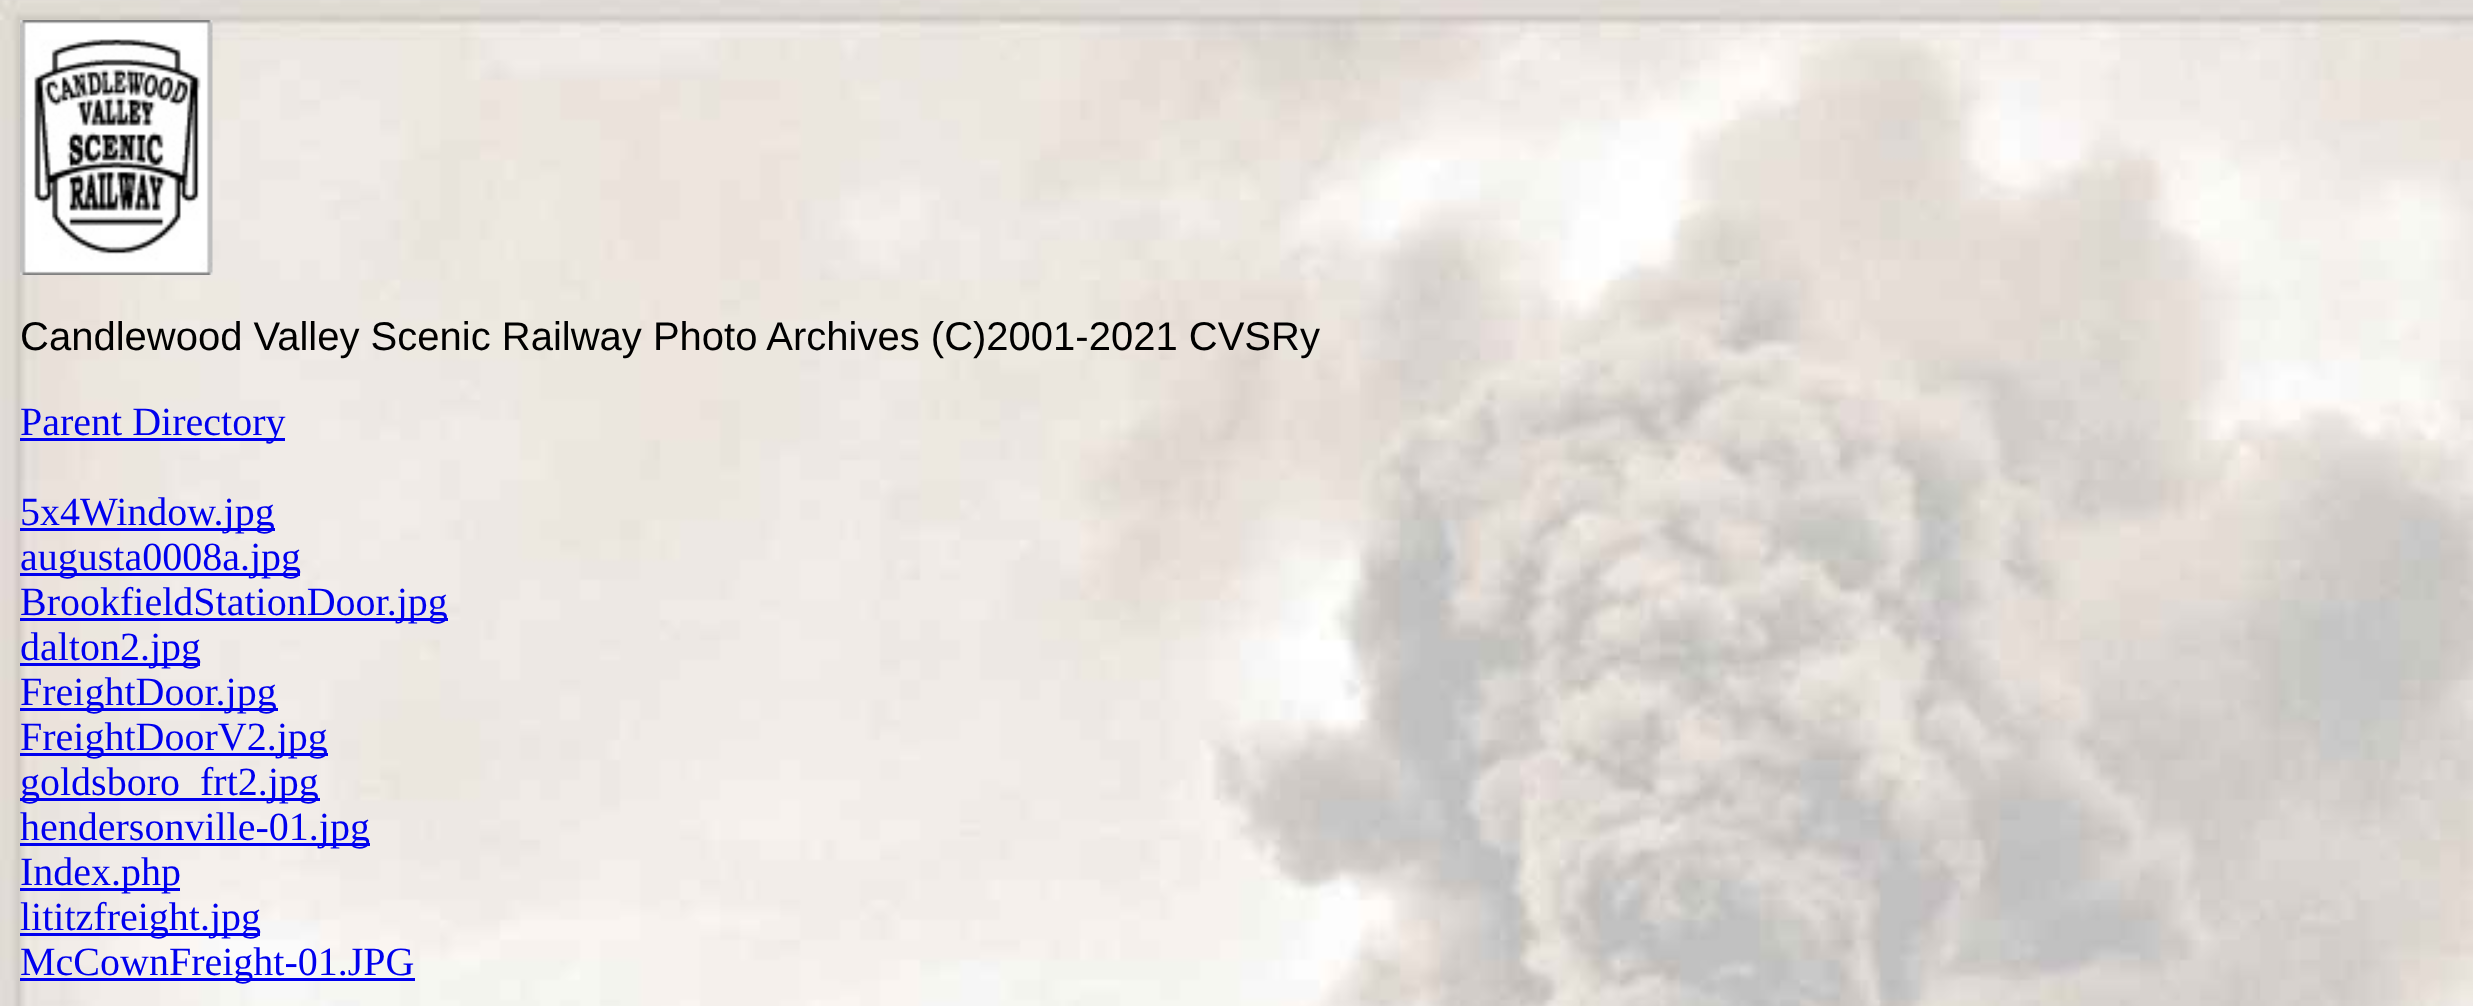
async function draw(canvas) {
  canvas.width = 2473
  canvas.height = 1006
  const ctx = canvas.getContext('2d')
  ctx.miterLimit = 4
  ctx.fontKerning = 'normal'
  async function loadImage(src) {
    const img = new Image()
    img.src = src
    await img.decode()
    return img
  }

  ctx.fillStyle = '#fff'
  ctx.fillRect(0, 0, 2473, 1006)
  ctx.drawImage(await loadImage('image0.png'), 0, 0, 2473, 1006)
  ctx.drawImage(await loadImage('image1.png'), 20, 20, 193, 255)
  ctx.font = '40px Liberation Sans'
  ctx.fillStyle = '#000'
  ctx.fillText('Candlewood Valley Scenic Railway Photo Archives (C)2001-2021 CVSRy', 20, 350)
  ctx.fillStyle = '#00e'
  ctx.fillRect(20, 438, 265, 3)
  ctx.font = '40px Liberation Serif'
  ctx.fillText('Parent Directory', 20, 435)
  ctx.fillRect(20, 528, 255, 3)
  ctx.fillText('5x4Window.jpg', 20, 525)
  ctx.fillRect(20, 573, 280, 3)
  ctx.fillText('augusta0008a.jpg', 20, 570)
  ctx.fillRect(20, 618, 428, 3)
  ctx.fillText('BrookfieldStationDoor.jpg', 20, 615)
  ctx.fillRect(20, 663, 180, 3)
  ctx.fillText('dalton2.jpg', 20, 660)
  ctx.fillRect(20, 708, 258, 3)
  ctx.fillText('FreightDoor.jpg', 20, 705)
  ctx.fillRect(20, 753, 308, 3)
  ctx.fillText('FreightDoorV2.jpg', 20, 750)
  ctx.fillRect(20, 798, 300, 3)
  ctx.fillText('goldsboro_frt2.jpg', 20, 795)
  ctx.fillRect(20, 843, 350, 3)
  ctx.fillText('hendersonville-01.jpg', 20, 840)
  ctx.fillRect(20, 888, 160, 3)
  ctx.fillText('Index.php', 20, 885)
  ctx.fillRect(20, 933, 240, 3)
  ctx.fillText('lititzfreight.jpg', 20, 930)
  ctx.fillRect(20, 978, 395, 3)
  ctx.fillText('McCownFreight-01.JPG', 20, 975)
}

draw(document.querySelector('canvas'))
